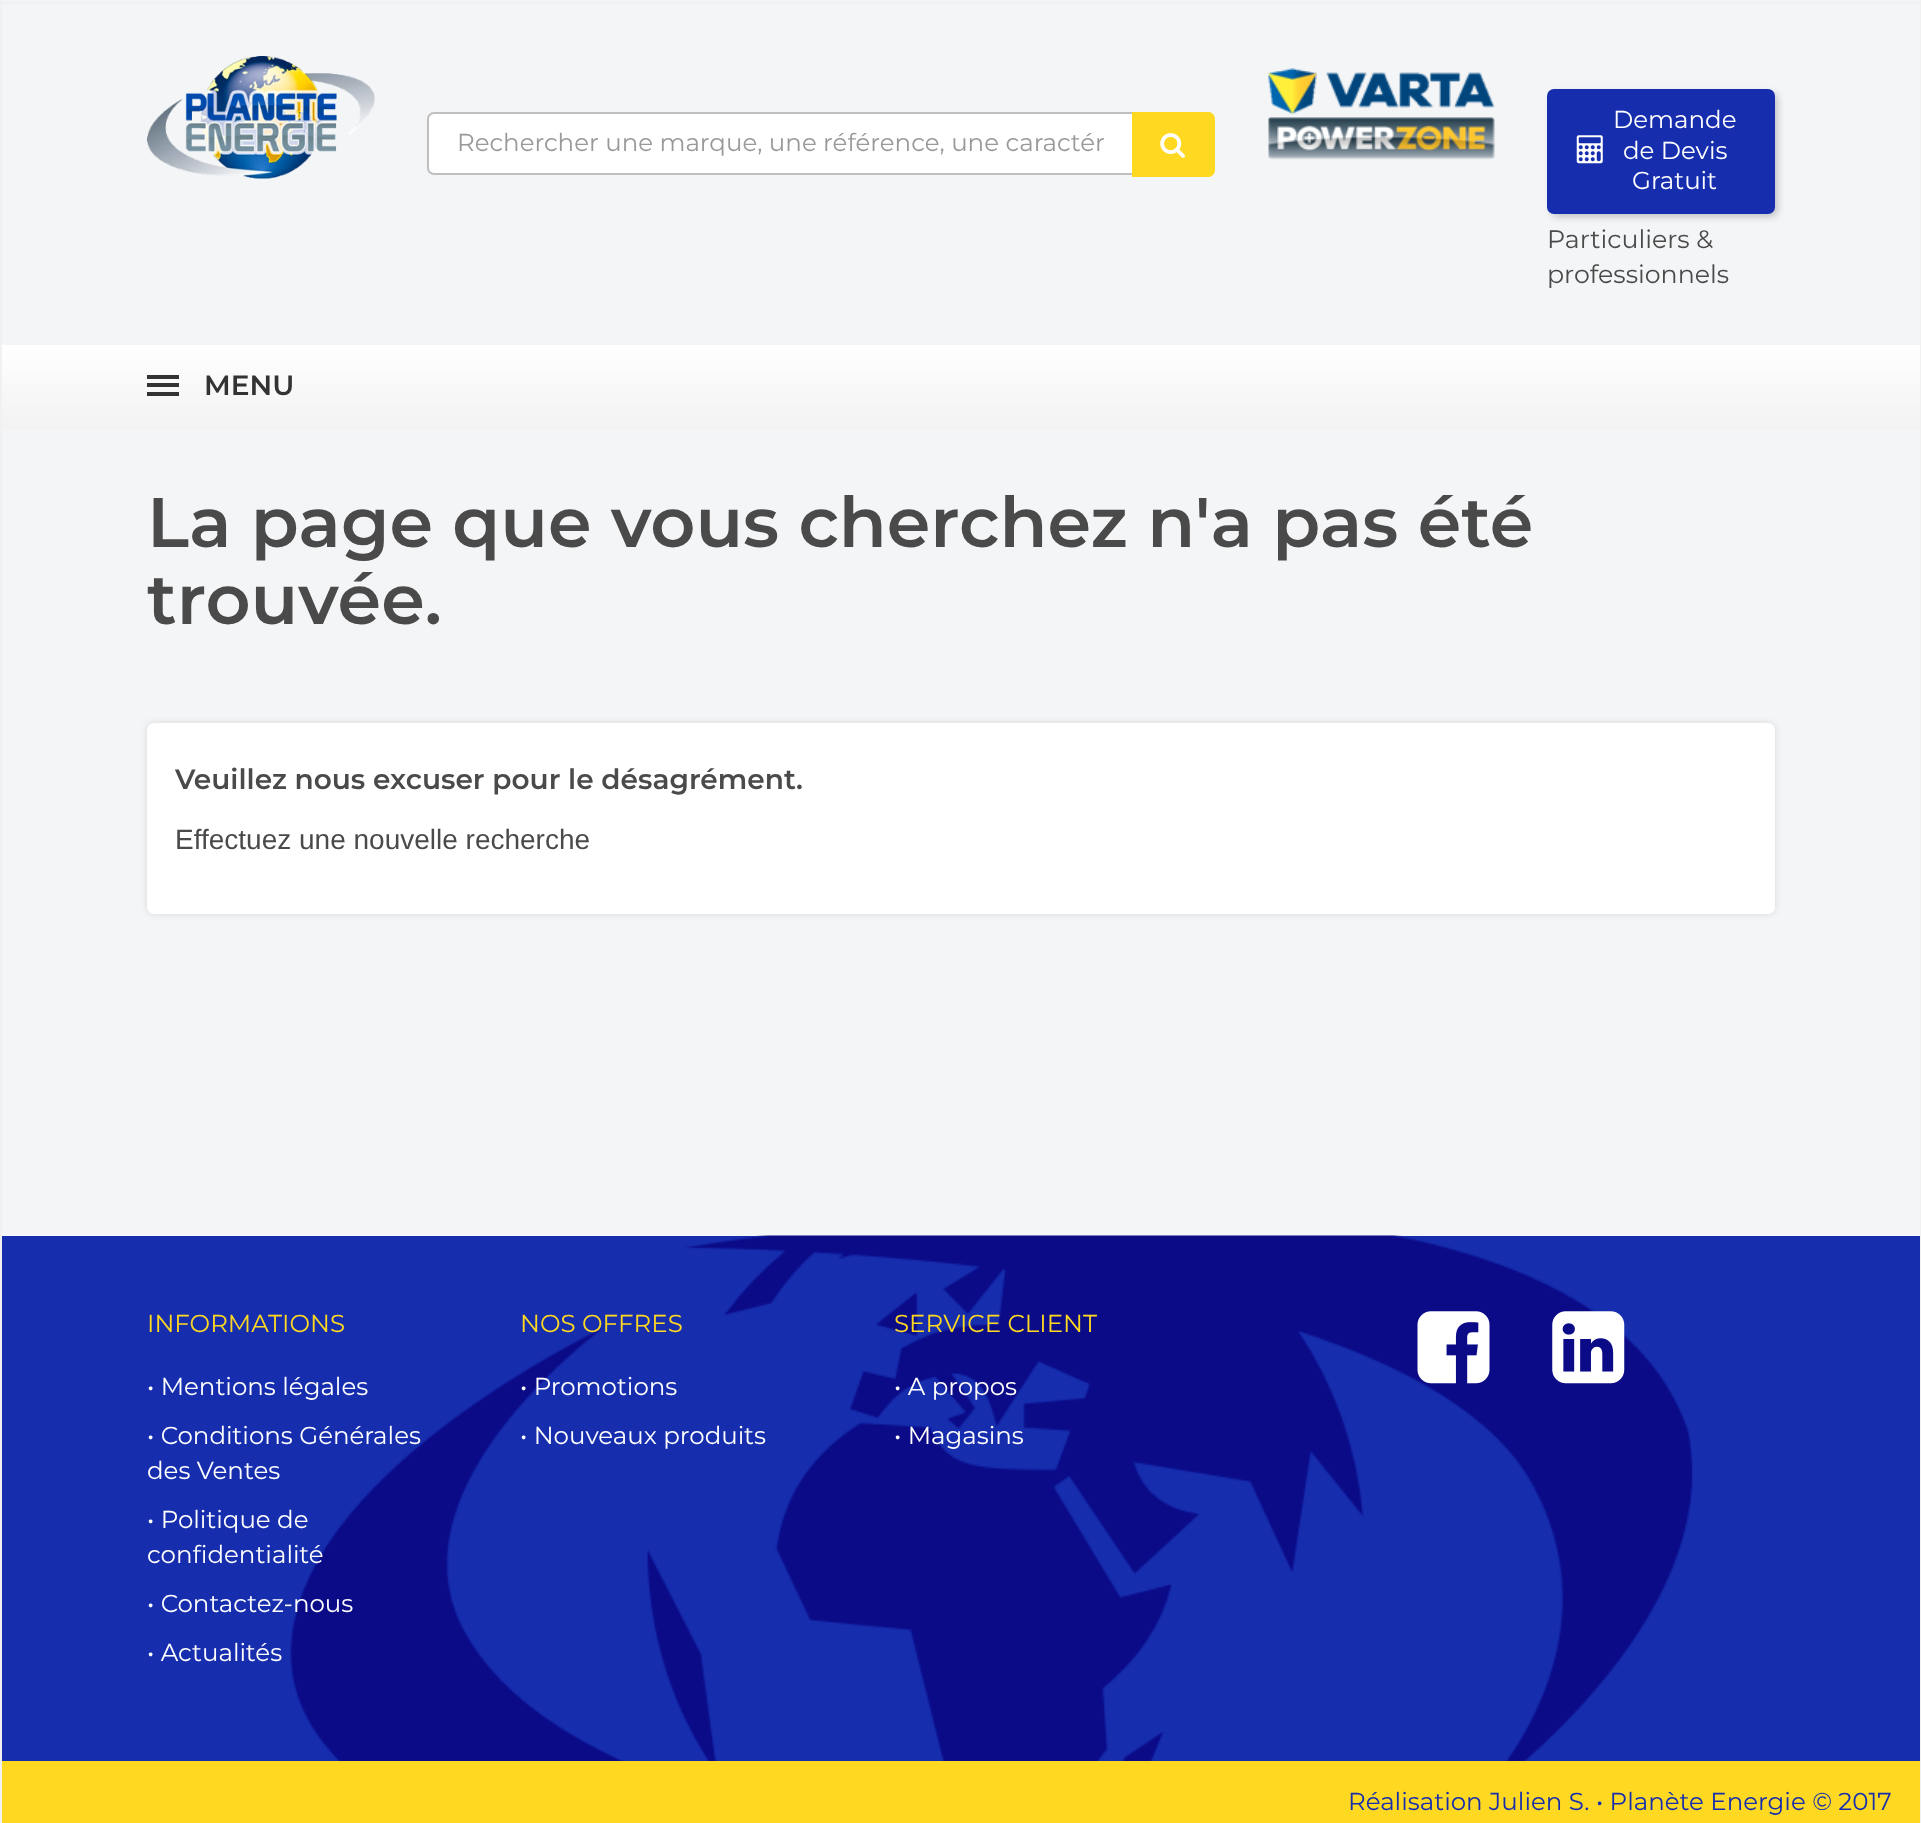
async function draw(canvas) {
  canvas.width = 1921
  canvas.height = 1823
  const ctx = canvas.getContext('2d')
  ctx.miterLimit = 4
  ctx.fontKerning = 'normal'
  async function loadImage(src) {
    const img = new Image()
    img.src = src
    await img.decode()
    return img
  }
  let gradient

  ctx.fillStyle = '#f4f5f6'
  ctx.fillRect(0, 0, 1921, 1823)
  ctx.fillStyle = '#f1f1f1'
  ctx.fillRect(1920, 0, 1, 1823)
  ctx.fillRect(0, 0, 2, 1823)
  ctx.fillRect(2, 2, 1918, 2)
  ctx.drawImage(await loadImage('image0.png'), 147, 56, 228, 123)
  ctx.fillStyle = '#fff'
  ctx.beginPath()
  ctx.roundRect(427, 112, 707, 63, [7, 0, 0, 7])
  ctx.fill()
  ctx.beginPath()
  ctx.roundRect(428, 113, 705, 61, [6, 0, 0, 6])
  ctx.strokeStyle = '#00000040'
  ctx.lineWidth = 2
  ctx.stroke()
  ctx.font = '24.5px Montserrat'
  ctx.fillStyle = '#999'
  ctx.fillText('Rechercher une marque, une référence, une caractér', 457, 151)
  ctx.fillStyle = '#fed821'
  ctx.beginPath()
  ctx.roundRect(1132, 112, 83, 65, [0, 7, 7, 0])
  ctx.fill()
  ctx.beginPath()
  ctx.moveTo(1132, 112)
  ctx.lineTo(1208, 112)
  ctx.bezierCurveTo(1211, 112, 1214, 115, 1214, 119)
  ctx.lineTo(1214, 170)
  ctx.bezierCurveTo(1214, 174, 1211, 177, 1208, 177)
  ctx.lineTo(1132, 177)
  ctx.closePath()
  ctx.moveTo(1132, 114)
  ctx.lineTo(1208, 114)
  ctx.bezierCurveTo(1210, 114, 1213, 116, 1213, 119)
  ctx.lineTo(1213, 170)
  ctx.bezierCurveTo(1213, 173, 1210, 175, 1208, 175)
  ctx.lineTo(1132, 175)
  ctx.closePath()
  ctx.fill('evenodd')
  ctx.drawImage(await loadImage('image1.png'), 1160, 133, 25, 25)
  ctx.drawImage(await loadImage('image2.png'), 1267, 68, 228, 92)
  ctx.fillStyle = '#00000033'
  ctx.filter = 'blur(3.5px)'
  ctx.beginPath()
  ctx.roundRect(1551, 93, 227, 124, 7)
  ctx.fill()
  ctx.filter = 'none'
  ctx.fillStyle = '#162eae'
  ctx.beginPath()
  ctx.roundRect(1547, 89, 228, 125, 7)
  ctx.fill()
  ctx.drawImage(await loadImage('image3.png'), 1576, 135, 27, 29)
  ctx.fillStyle = '#fff'
  ctx.fillText('Demande', 1613, 128)
  ctx.fillText('de Devis', 1623, 159)
  ctx.fillText('Gratuit', 1632, 189)
  ctx.font = '25.25px Montserrat'
  ctx.fillStyle = '#4a4a4a'
  ctx.fillText('Particuliers &', 1547, 248)
  ctx.fillText('professionnels', 1547, 283)
  gradient = ctx.createLinearGradient(961, 345, 961, 429)
  gradient.addColorStop(0, '#fff')
  gradient.addColorStop(1, '#f2f2f2')
  ctx.fillStyle = gradient
  ctx.fillRect(2, 345, 1918, 84)
  ctx.fillStyle = '#333'
  ctx.fillRect(147, 375, 32, 4)
  ctx.fillRect(147, 383, 32, 4)
  ctx.fillRect(147, 392, 32, 4)
  ctx.font = '600 28px Montserrat'
  ctx.fillText('MENU', 204, 395)
  ctx.font = '600 70px Montserrat'
  ctx.fillStyle = '#4a4a4a'
  ctx.fillText('La page que vous cherchez n\'a pas été', 147, 547)
  ctx.fillText('trouvée.', 147, 624)
  ctx.fillStyle = '#0000001c'
  ctx.filter = 'blur(3.5px)'
  ctx.beginPath()
  ctx.roundRect(147, 723, 1628, 191, 7)
  ctx.fill()
  ctx.filter = 'none'
  ctx.fillStyle = '#fff'
  ctx.beginPath()
  ctx.roundRect(147, 723, 1628, 191, 7)
  ctx.fill()
  ctx.font = '600 28px Montserrat'
  ctx.fillStyle = '#4a4a4a'
  ctx.fillText('Veuillez nous excuser pour le désagrément.', 175, 789)
  ctx.font = '28px Liberation Sans'
  ctx.fillText('Effectuez une nouvelle recherche', 175, 849)
  ctx.fillStyle = '#162eae'
  ctx.fillRect(2, 1236, 1918, 525)
  ctx.drawImage(await loadImage('image4.png'), 290, 1235, 1403, 526)
  ctx.font = '24.5px Montserrat'
  ctx.fillStyle = '#fed821'
  ctx.fillText('INFORMATIONS', 147, 1332)
  ctx.fillStyle = '#fff'
  ctx.fillText('• Mentions légales', 147, 1395)
  ctx.fillText('• Conditions Générales', 147, 1444)
  ctx.fillText('des Ventes', 147, 1479)
  ctx.fillText('• Politique de', 147, 1528)
  ctx.fillText('confidentialité', 147, 1563)
  ctx.fillText('• Contactez-nous', 147, 1612)
  ctx.fillText('• Actualités', 147, 1661)
  ctx.fillStyle = '#fed821'
  ctx.fillText('NOS OFFRES', 520, 1332)
  ctx.fillStyle = '#fff'
  ctx.fillText('• Promotions', 520, 1395)
  ctx.fillText('• Nouveaux produits', 520, 1444)
  ctx.fillStyle = '#fed821'
  ctx.fillText('SERVICE CLIENT', 894, 1332)
  ctx.fillStyle = '#fff'
  ctx.fillText('• A propos', 894, 1395)
  ctx.fillText('• Magasins', 894, 1444)
  ctx.drawImage(await loadImage('image5.png'), 1417, 1311, 73, 73)
  ctx.drawImage(await loadImage('image6.png'), 1552, 1311, 73, 73)
  ctx.fillStyle = '#fed821'
  ctx.fillRect(2, 1761, 1918, 62)
  ctx.fillStyle = '#162eae'
  ctx.fillText('Réalisation Julien S. • Planète Energie © 2017', 1348, 1810)
}

draw(document.querySelector('canvas'))
